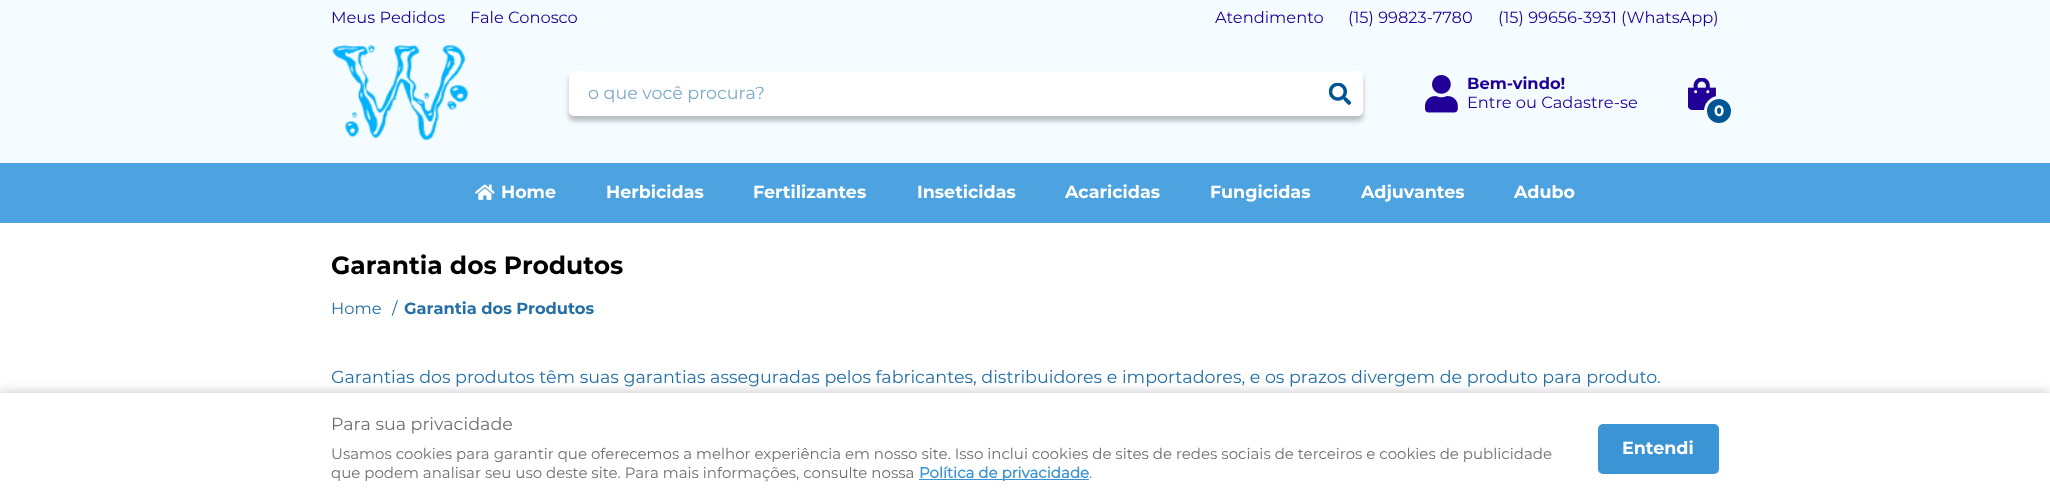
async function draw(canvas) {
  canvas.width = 2050
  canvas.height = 504
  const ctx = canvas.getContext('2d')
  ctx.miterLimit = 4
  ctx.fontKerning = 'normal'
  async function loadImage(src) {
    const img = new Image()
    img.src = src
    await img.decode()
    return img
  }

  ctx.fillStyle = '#fff'
  ctx.fillRect(0, 0, 2050, 504)
  ctx.fillStyle = '#f5fcff'
  ctx.fillRect(0, 0, 2050, 163)
  ctx.font = '16.25px Montserrat'
  ctx.fillStyle = '#210099'
  ctx.fillText('Meus Pedidos', 331, 23)
  ctx.fillText('Fale Conosco', 470, 23)
  ctx.fillText('Atendimento', 1215, 23)
  ctx.fillText('(15) 99823-7780', 1348, 23)
  ctx.fillText('(15) 99656-3931 (WhatsApp)', 1498, 23)
  ctx.drawImage(await loadImage('image0.png'), 332, 44, 137, 97)
  ctx.fillStyle = '#00000040'
  ctx.filter = 'blur(2.5px)'
  ctx.beginPath()
  ctx.roundRect(569, 76, 794, 45, 5)
  ctx.fill()
  ctx.filter = 'none'
  ctx.fillStyle = '#fff'
  ctx.beginPath()
  ctx.roundRect(569, 71, 794, 45, 5)
  ctx.fill()
  ctx.font = '17.5px Montserrat'
  ctx.fillStyle = '#7ba9ca'
  ctx.fillText('o que você procura?', 588, 99)
  ctx.drawImage(await loadImage('image1.png'), 1329, 83, 22, 22)
  ctx.drawImage(await loadImage('image2.png'), 1425, 75, 33, 38)
  ctx.font = 'bold 16.25px Montserrat'
  ctx.fillStyle = '#210099'
  ctx.fillText('Bem-vindo!', 1467, 89)
  ctx.font = '16.25px Montserrat'
  ctx.fillText('Entre ou Cadastre-se', 1467, 108)
  ctx.drawImage(await loadImage('image3.png'), 1688, 78, 28, 32)
  ctx.fillStyle = '#005694'
  ctx.beginPath()
  ctx.arc(1719, 111, 13.5, 0, 2 * Math.PI)
  ctx.fill()
  ctx.strokeStyle = '#f5fcff'
  ctx.lineWidth = 3
  ctx.stroke()
  ctx.font = 'bold 15px Montserrat'
  ctx.fillStyle = '#fff'
  ctx.fillText('0', 1714, 116)
  ctx.fillStyle = '#4ca3e0'
  ctx.fillRect(0, 163, 2050, 60)
  ctx.drawImage(await loadImage('image4.png'), 475, 184, 20, 16)
  ctx.font = 'bold 17.5px Montserrat'
  ctx.fillStyle = '#fff'
  ctx.fillText('Home', 501, 198)
  ctx.fillText('Herbicidas', 606, 198)
  ctx.fillText('Fertilizantes', 753, 198)
  ctx.fillText('Inseticidas', 917, 198)
  ctx.fillText('Acaricidas', 1065, 198)
  ctx.fillText('Fungicidas', 1210, 198)
  ctx.fillText('Adjuvantes', 1361, 198)
  ctx.fillText('Adubo', 1514, 198)
  ctx.font = 'bold 25px Montserrat'
  ctx.fillStyle = '#000'
  ctx.fillText('Garantia dos Produtos', 331, 274)
  ctx.font = '16.25px Montserrat'
  ctx.fillStyle = '#236fa6'
  ctx.fillText('Home', 331, 314)
  ctx.fillText('/', 392, 314)
  ctx.font = 'bold 16.25px Montserrat'
  ctx.fillText('Garantia dos Produtos', 404, 314)
  ctx.font = '17.5px Montserrat'
  ctx.fillText('Garantias dos produtos têm suas garantias asseguradas pelos fabricantes, distribuidores e importadores, e os prazos divergem de produto para produto.', 331, 383)
  ctx.fillStyle = '#00000040'
  ctx.filter = 'blur(6px)'
  ctx.beginPath()
  ctx.rect(0, 393, 2050, 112)
  ctx.fill()
  ctx.filter = 'none'
  ctx.fillStyle = '#fff'
  ctx.fillRect(0, 393, 2050, 111)
  ctx.fillStyle = '#707070'
  ctx.fillText('Para sua privacidade', 331, 430)
  ctx.font = '15px Montserrat'
  ctx.fillText('Usamos cookies para garantir que oferecemos a melhor experiência em nosso site. Isso inclui cookies de sites de redes sociais de terceiros e cookies de publicidade', 331, 459)
  ctx.fillText('que podem analisar seu uso deste site. Para mais informações, consulte nossa', 331, 478)
  ctx.fillStyle = '#3b94d4'
  ctx.fillRect(919, 479, 170, 1)
  ctx.font = 'bold 15px "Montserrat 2"'
  ctx.fillText('Política de privacidade', 919, 478)
  ctx.font = '15px Montserrat'
  ctx.fillStyle = '#707070'
  ctx.fillText('.', 1089, 478)
  ctx.fillStyle = '#3b94d4'
  ctx.beginPath()
  ctx.roundRect(1598, 424, 121, 50, 5)
  ctx.fill()
  ctx.font = 'bold 17.5px Montserrat'
  ctx.fillStyle = '#fff'
  ctx.fillText('Entendi', 1622, 454)
}

draw(document.querySelector('canvas'))
